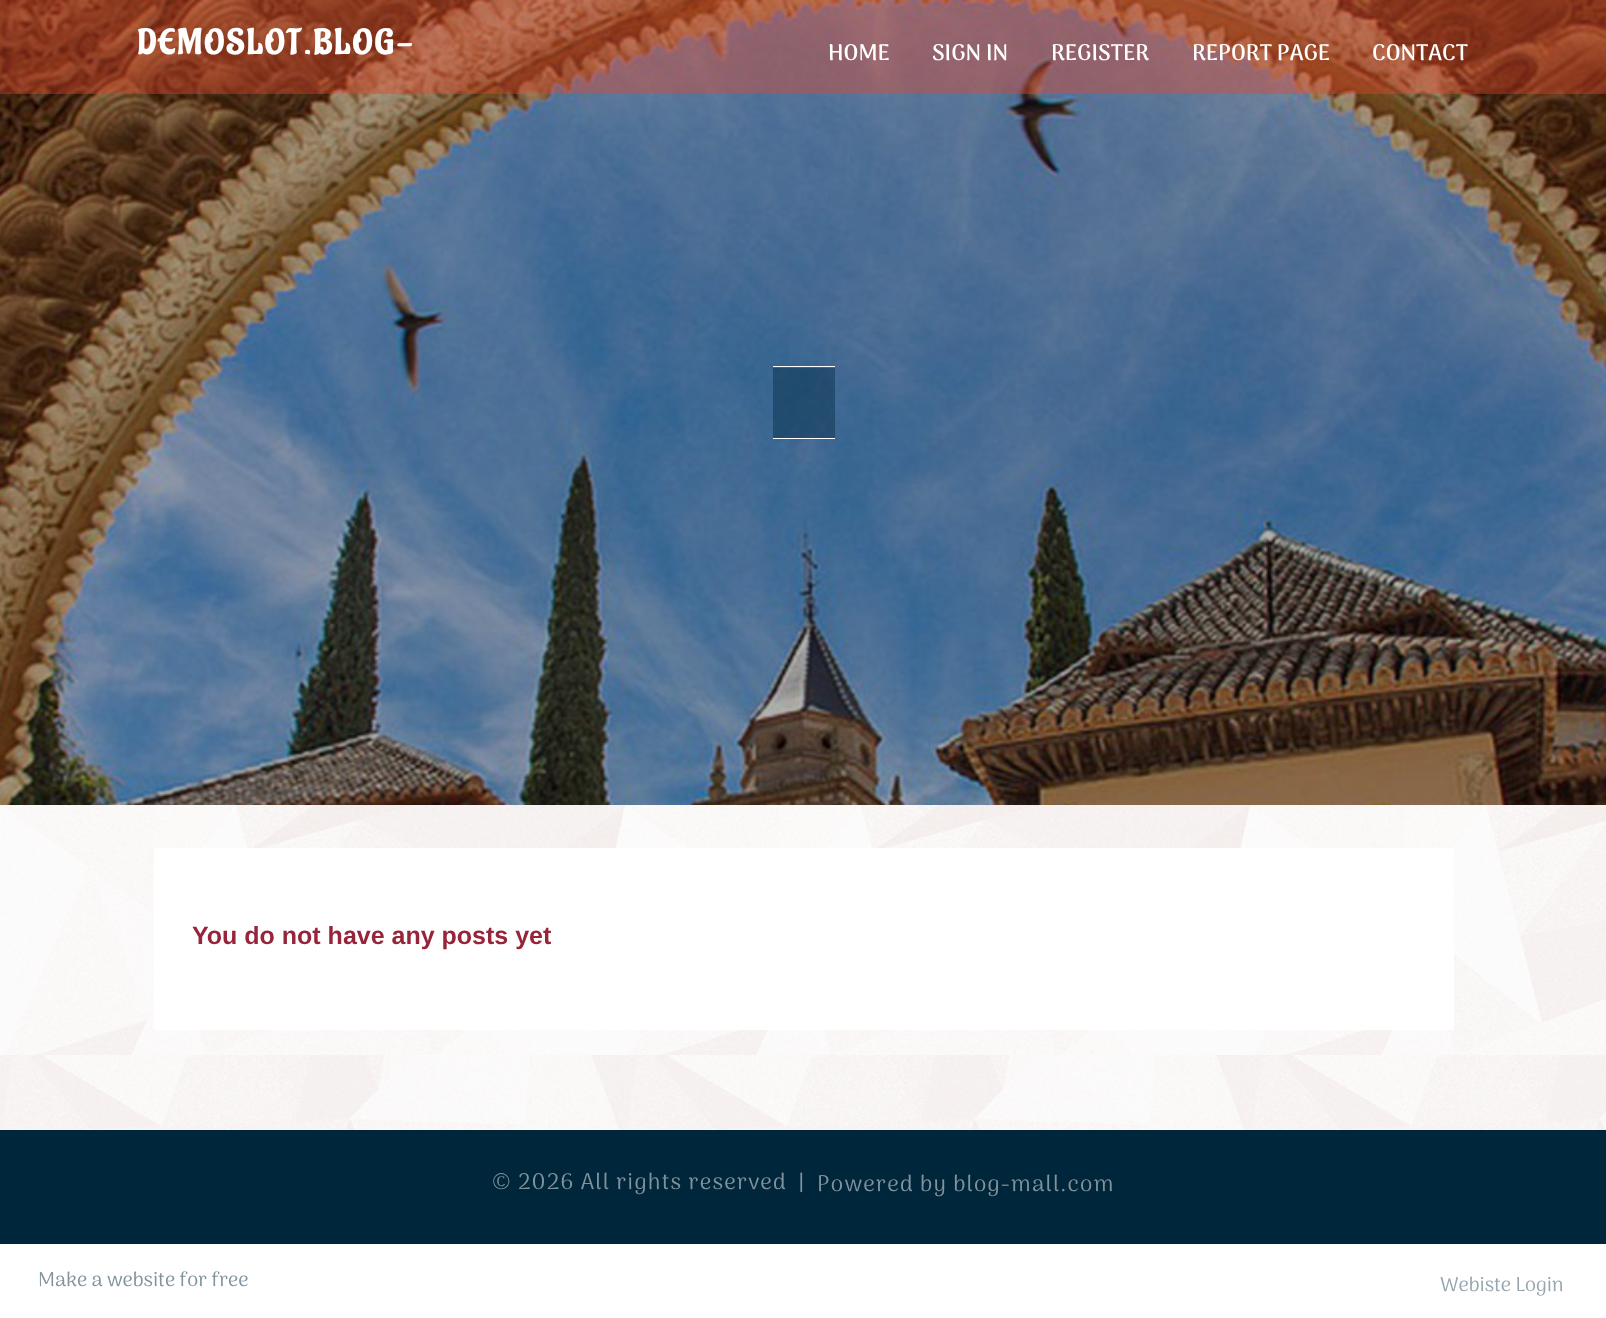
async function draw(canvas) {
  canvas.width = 1606
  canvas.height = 1318
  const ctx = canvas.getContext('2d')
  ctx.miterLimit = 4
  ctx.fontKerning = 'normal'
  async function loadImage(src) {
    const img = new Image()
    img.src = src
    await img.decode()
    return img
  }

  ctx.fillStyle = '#fff'
  ctx.fillRect(0, 0, 1606, 1318)
  ctx.drawImage(await loadImage('image0.png'), 0, 1055, 1606, 75)
  ctx.drawImage(await loadImage('image1.png'), 0, 0, 1606, 805)
  ctx.fillStyle = '#e5452b66'
  ctx.fillRect(0, 0, 1606, 94)
  ctx.letterSpacing = '2.5px'
  ctx.font = 'bold 35px Aladin'
  ctx.fillStyle = '#fff'
  ctx.fillText('DEMOSLOT.BLOG-', 137, 54)
  ctx.letterSpacing = '0px'
  ctx.font = 'bold 22.5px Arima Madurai'
  ctx.fillText('HOME', 828, 60)
  ctx.fillText('SIGN IN', 932, 60)
  ctx.fillText('REGISTER', 1051, 60)
  ctx.fillText('REPORT PAGE', 1192, 60)
  ctx.fillText('CONTACT', 1372, 60)
  ctx.fillStyle = '#00263b66'
  ctx.fillRect(773, 368, 62, 70)
  ctx.fillStyle = '#fff'
  ctx.fillRect(773, 366, 62, 1)
  ctx.fillRect(773, 438, 62, 1)
  ctx.drawImage(await loadImage('image2.png'), 0, 805, 1606, 250)
  ctx.fillRect(154, 848, 1300, 182)
  ctx.font = 'bold 25px Liberation Sans'
  ctx.fillStyle = '#96243a'
  ctx.fillText('You do not have any posts yet', 192, 944)
  ctx.fillStyle = '#00263b'
  ctx.fillRect(0, 1130, 1606, 114)
  ctx.letterSpacing = '1.25px'
  ctx.font = '22.5px Arima Madurai'
  ctx.fillStyle = '#80939d'
  ctx.fillText('© 2026 All rights reserved', 492, 1189)
  ctx.fillText('|', 798, 1189)
  ctx.fillText('Powered by blog-mall.com', 817, 1191)
  ctx.letterSpacing = '0px'
  ctx.font = '20px Arima Madurai'
  ctx.fillText('Make a website for free', 38, 1286)
  ctx.fillStyle = '#96a5ae'
  ctx.fillText('Webiste Login', 1440, 1291)
}

draw(document.querySelector('canvas'))
